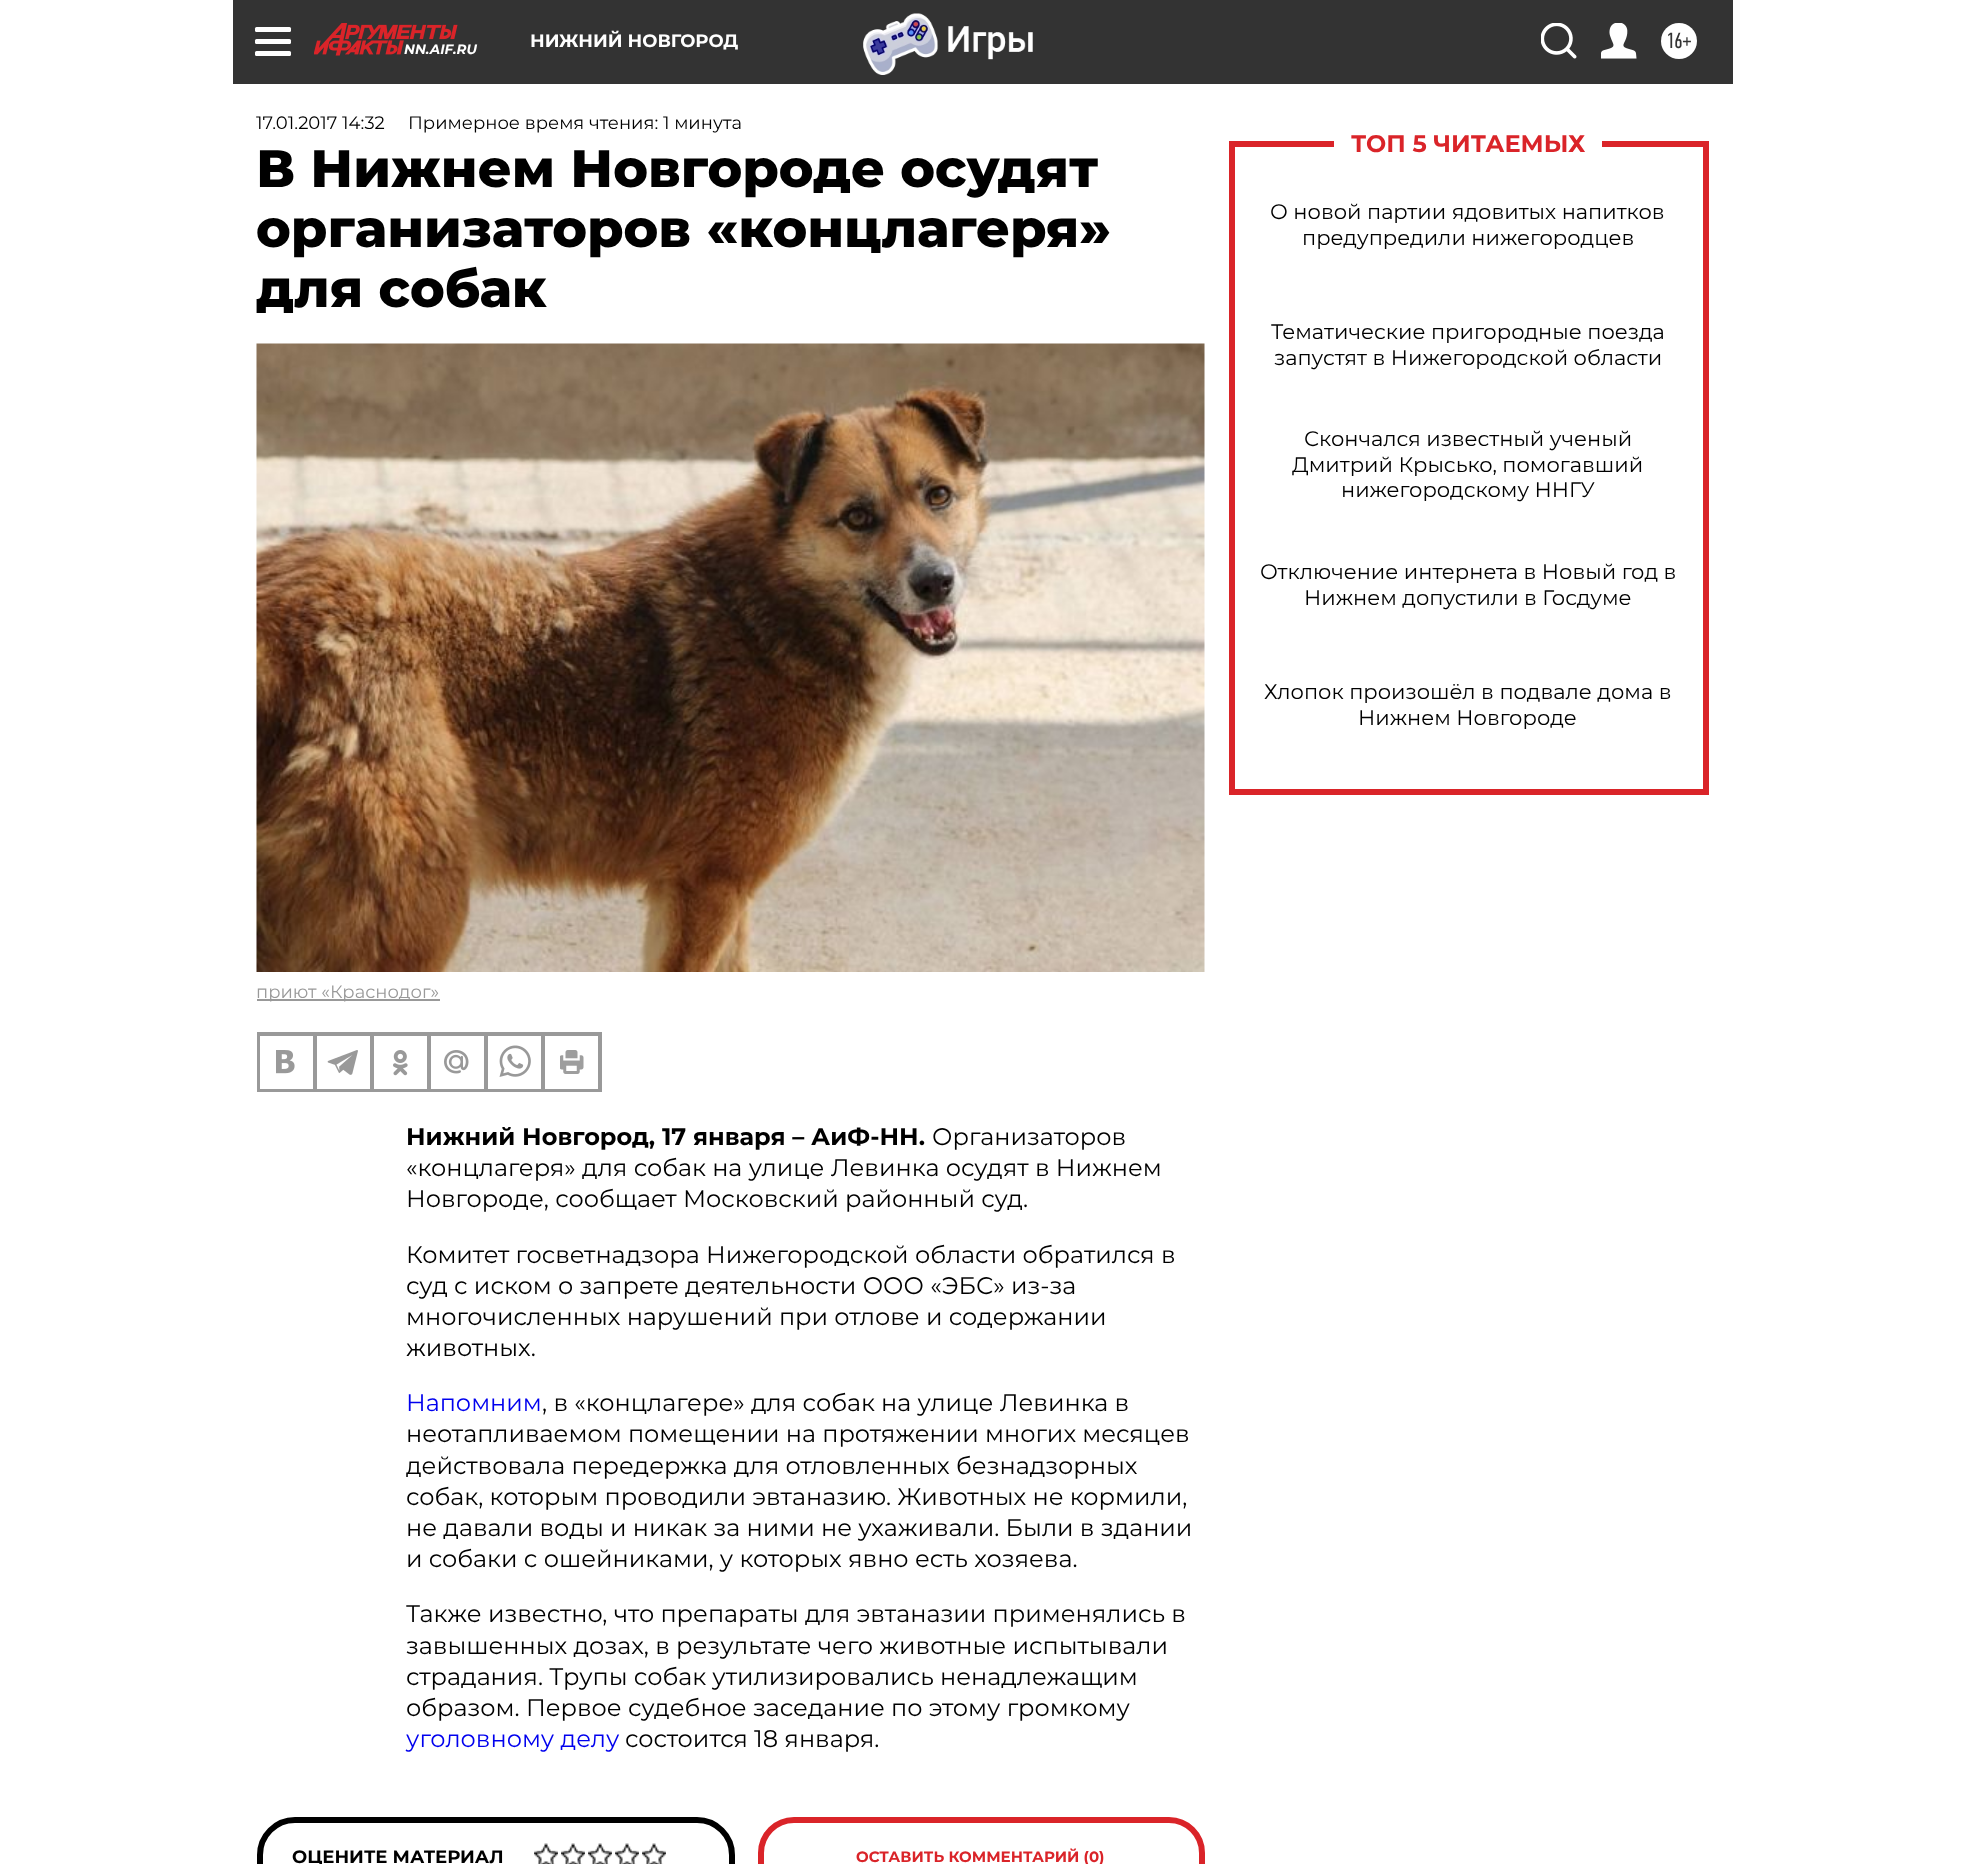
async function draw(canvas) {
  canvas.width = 1963
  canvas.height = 1864
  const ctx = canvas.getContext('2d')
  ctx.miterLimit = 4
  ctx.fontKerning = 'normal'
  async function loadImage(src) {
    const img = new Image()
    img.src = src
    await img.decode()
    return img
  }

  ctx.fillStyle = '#fff'
  ctx.fillRect(0, 0, 1963, 1864)
  ctx.fillStyle = '#333'
  ctx.fillRect(233, 0, 1500, 84)
  ctx.fillStyle = '#fff'
  ctx.beginPath()
  ctx.roundRect(255, 27, 36, 5, 1.5)
  ctx.fill()
  ctx.beginPath()
  ctx.roundRect(255, 39, 36, 5, 1.5)
  ctx.fill()
  ctx.beginPath()
  ctx.roundRect(255, 51, 36, 5, 1.5)
  ctx.fill()
  ctx.drawImage(await loadImage('image0.png'), 314, 23, 144, 33)
  ctx.font = 'italic bold 13.5px Montserrat'
  ctx.fillText('NN.AIF.RU', 404, 54)
  ctx.font = 'bold 18px Montserrat'
  ctx.fillText('НИЖНИЙ НОВГОРОД', 530, 47)
  ctx.drawImage(await loadImage('image1.png'), 863, 13, 170, 62)
  ctx.drawImage(await loadImage('image2.png'), 1541, 23, 36, 36)
  ctx.drawImage(await loadImage('image3.png'), 1601, 23, 36, 36)
  ctx.beginPath()
  ctx.arc(1679, 41, 18, 0, 2 * Math.PI)
  ctx.fill()
  ctx.font = '22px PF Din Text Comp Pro'
  ctx.fillStyle = '#333'
  ctx.fillText('16+', 1666, 48)
  ctx.font = '18px Montserrat'
  ctx.fillStyle = '#000'
  ctx.fillText('17.01.2017 14:32', 256, 129)
  ctx.fillText('Примерное время чтения: 1 минута', 408, 129)
  ctx.font = '800 52.5px Montserrat'
  ctx.fillText('В Нижнем Новгороде осудят', 256, 187)
  ctx.fillText('организаторов «концлагеря»', 256, 247)
  ctx.fillText('для собак', 256, 307)
  ctx.drawImage(await loadImage('image4.png'), 256, 343, 949, 629)
  ctx.fillStyle = '#999'
  ctx.fillRect(257, 999, 183, 2)
  ctx.font = '18px Montserrat'
  ctx.fillText('приют «Краснодог»', 256, 998)
  ctx.strokeStyle = '#999'
  ctx.lineWidth = 2
  ctx.strokeRect(258, 1033, 343, 58)
  ctx.strokeRect(259, 1035, 55, 55)
  ctx.drawImage(await loadImage('image5.png'), 276, 1050, 19, 24)
  ctx.strokeRect(316, 1035, 55, 55)
  ctx.drawImage(await loadImage('image6.png'), 327, 1050, 31, 25)
  ctx.strokeRect(373, 1035, 55, 55)
  ctx.drawImage(await loadImage('image7.png'), 393, 1050, 15, 26)
  ctx.strokeRect(430, 1035, 55, 55)
  ctx.drawImage(await loadImage('image8.png'), 444, 1050, 25, 24)
  ctx.strokeRect(487, 1035, 55, 55)
  ctx.drawImage(await loadImage('image9.png'), 499, 1045, 32, 32)
  ctx.strokeRect(544, 1035, 55, 55)
  ctx.drawImage(await loadImage('image10.png'), 560, 1050, 24, 24)
  ctx.font = 'bold 24px Montserrat'
  ctx.fillStyle = '#000'
  ctx.fillText('Нижний Новгород, 17 января – АиФ-НН.', 406, 1145)
  ctx.font = '24px Montserrat'
  ctx.fillText('Организаторов', 932, 1145)
  ctx.fillText('«концлагеря» для собак на улице Левинка осудят в Нижнем', 406, 1176)
  ctx.fillText('Новгороде, сообщает Московский районный суд.', 406, 1207)
  ctx.fillText('Комитет госветнадзора Нижегородской области обратился в', 406, 1263)
  ctx.fillText('суд с иском о запрете деятельности ООО «ЭБС» из-за', 406, 1294)
  ctx.fillText('многочисленных нарушений при отлове и содержании', 406, 1325)
  ctx.fillText('животных.', 406, 1356)
  ctx.fillStyle = '#00e'
  ctx.fillText('Напомним', 406, 1411)
  ctx.fillStyle = '#000'
  ctx.fillText(', в «концлагере» для собак на улице Левинка в', 542, 1411)
  ctx.fillText('неотапливаемом помещении на протяжении многих месяцев', 406, 1442)
  ctx.fillText('действовала передержка для отловленных безнадзорных', 406, 1474)
  ctx.fillText('собак, которым проводили эвтаназию. Животных не кормили,', 406, 1505)
  ctx.fillText('не давали воды и никак за ними не ухаживали. Были в здании', 406, 1536)
  ctx.fillText('и собаки с ошейниками, у которых явно есть хозяева.', 406, 1567)
  ctx.fillText('Также известно, что препараты для эвтаназии применялись в', 406, 1622)
  ctx.fillText('завышенных дозах, в результате чего животные испытывали', 406, 1654)
  ctx.fillText('страдания. Трупы собак утилизировались ненадлежащим', 406, 1685)
  ctx.fillText('образом. Первое судебное заседание по этому громкому', 406, 1716)
  ctx.fillStyle = '#00e'
  ctx.fillText('уголовному делу', 406, 1747)
  ctx.fillStyle = '#000'
  ctx.fillText('состоится 18 января.', 625, 1747)
  ctx.beginPath()
  ctx.roundRect(260, 1820, 472, 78, 35)
  ctx.strokeStyle = '#000'
  ctx.lineWidth = 6
  ctx.stroke()
  ctx.font = 'bold 18px Montserrat'
  ctx.fillText('ОЦЕНИТЕ МАТЕРИАЛ', 292, 1863)
  ctx.drawImage(await loadImage('image11.png'), 534, 1843, 24, 21)
  ctx.drawImage(await loadImage('image12.png'), 561, 1843, 24, 21)
  ctx.drawImage(await loadImage('image12.png'), 588, 1843, 24, 21)
  ctx.drawImage(await loadImage('image11.png'), 615, 1843, 24, 21)
  ctx.drawImage(await loadImage('image11.png'), 642, 1843, 24, 21)
  ctx.beginPath()
  ctx.roundRect(761, 1820, 441, 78, 33)
  ctx.strokeStyle = '#da2429'
  ctx.stroke()
  ctx.font = 'bold 15px Montserrat'
  ctx.fillStyle = '#da2429'
  ctx.fillText('ОСТАВИТЬ КОММЕНТАРИЙ (0)', 856, 1862)
  ctx.fillRect(1703, 141, 6, 654)
  ctx.fillRect(1229, 789, 480, 6)
  ctx.fillRect(1229, 141, 6, 654)
  ctx.fillRect(1229, 141, 105, 6)
  ctx.font = 'bold 24px Montserrat'
  ctx.fillText('ТОП 5 ЧИТАЕМЫХ', 1351, 152)
  ctx.fillRect(1602, 141, 107, 6)
  ctx.font = '21px Montserrat'
  ctx.fillStyle = '#000'
  ctx.fillText('О новой партии ядовитых напитков', 1270, 219)
  ctx.fillText('предупредили нижегородцев', 1302, 245)
  ctx.fillText('Тематические пригородные поезда', 1271, 339)
  ctx.fillText('запустят в Нижегородской области', 1274, 365)
  ctx.fillText('Скончался известный ученый', 1304, 446)
  ctx.fillText('Дмитрий Крысько, помогавший', 1292, 472)
  ctx.fillText('нижегородскому ННГУ', 1341, 497)
  ctx.fillText('Отключение интернета в Новый год в', 1260, 579)
  ctx.fillText('Нижнем допустили в Госдуме', 1304, 605)
  ctx.fillText('Хлопок произошёл в подвале дома в', 1264, 699)
  ctx.fillText('Нижнем Новгороде', 1358, 725)
}

draw(document.querySelector('canvas'))
